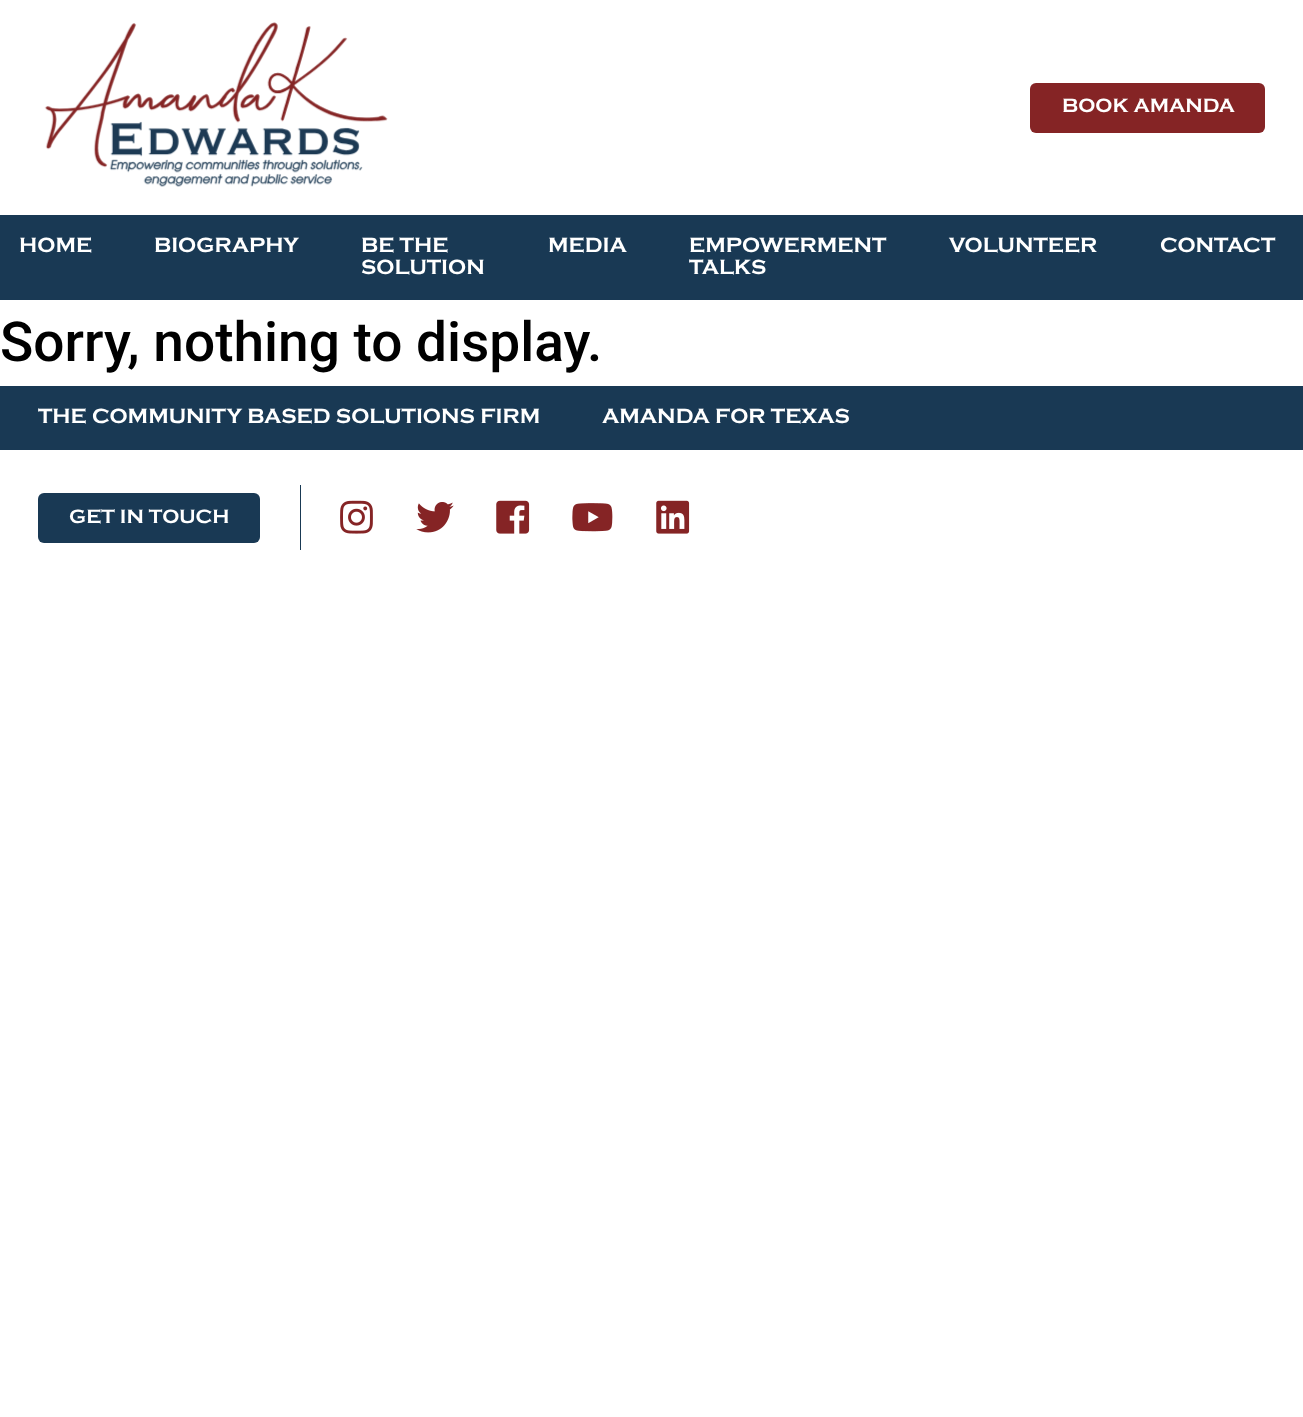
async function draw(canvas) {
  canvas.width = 1303
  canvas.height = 1417
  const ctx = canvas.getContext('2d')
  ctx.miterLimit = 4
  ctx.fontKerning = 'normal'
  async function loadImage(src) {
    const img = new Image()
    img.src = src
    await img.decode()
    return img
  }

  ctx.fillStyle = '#fff'
  ctx.fillRect(0, 0, 1303, 1417)
  ctx.drawImage(await loadImage('image0.png'), 44, 22, 344, 165)
  ctx.fillStyle = '#852425'
  ctx.beginPath()
  ctx.roundRect(1030, 83, 235, 50, 6)
  ctx.fill()
  ctx.font = 'bold 20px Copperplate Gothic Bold'
  ctx.fillStyle = '#fff'
  ctx.fillText('BOOK AMANDA', 1062, 112)
  ctx.fillStyle = '#193954'
  ctx.fillRect(0, 215, 1303, 85)
  ctx.font = 'bold 21.25px Copperplate Gothic Bold'
  ctx.fillStyle = '#fff'
  ctx.fillText('HOME', 19, 252)
  ctx.fillText('BIOGRAPHY', 154, 252)
  ctx.fillText('BE THE', 361, 252)
  ctx.fillText('SOLUTION', 361, 274)
  ctx.fillText('MEDIA', 548, 252)
  ctx.fillText('EMPOWERMENT', 689, 252)
  ctx.fillText('TALKS', 689, 274)
  ctx.fillText('VOLUNTEER', 949, 252)
  ctx.fillText('CONTACT', 1160, 252)
  ctx.font = '500 55px Roboto'
  ctx.fillStyle = '#000'
  ctx.fillText('Sorry, nothing to display.', 0, 361)
  ctx.fillStyle = '#193954'
  ctx.fillRect(0, 386, 1303, 64)
  ctx.font = 'bold 21.25px Copperplate Gothic Bold'
  ctx.fillStyle = '#fff'
  ctx.fillText('THE COMMUNITY BASED SOLUTIONS FIRM', 38, 423)
  ctx.fillText('AMANDA FOR TEXAS', 602, 423)
  ctx.fillStyle = '#193954'
  ctx.beginPath()
  ctx.roundRect(38, 493, 222, 50, 6)
  ctx.fill()
  ctx.font = 'bold 20px Copperplate Gothic Bold'
  ctx.fillStyle = '#fff'
  ctx.fillText('GET IN TOUCH', 69, 523)
  ctx.fillStyle = '#193954'
  ctx.fillRect(300, 485, 1, 65)
  ctx.drawImage(await loadImage('image1.png'), 340, 500, 33, 34)
  ctx.drawImage(await loadImage('image2.png'), 416, 502, 38, 31)
  ctx.drawImage(await loadImage('image3.png'), 496, 500, 34, 34)
  ctx.drawImage(await loadImage('image4.png'), 572, 503, 41, 29)
  ctx.drawImage(await loadImage('image5.png'), 656, 500, 34, 34)
}

draw(document.querySelector('canvas'))
